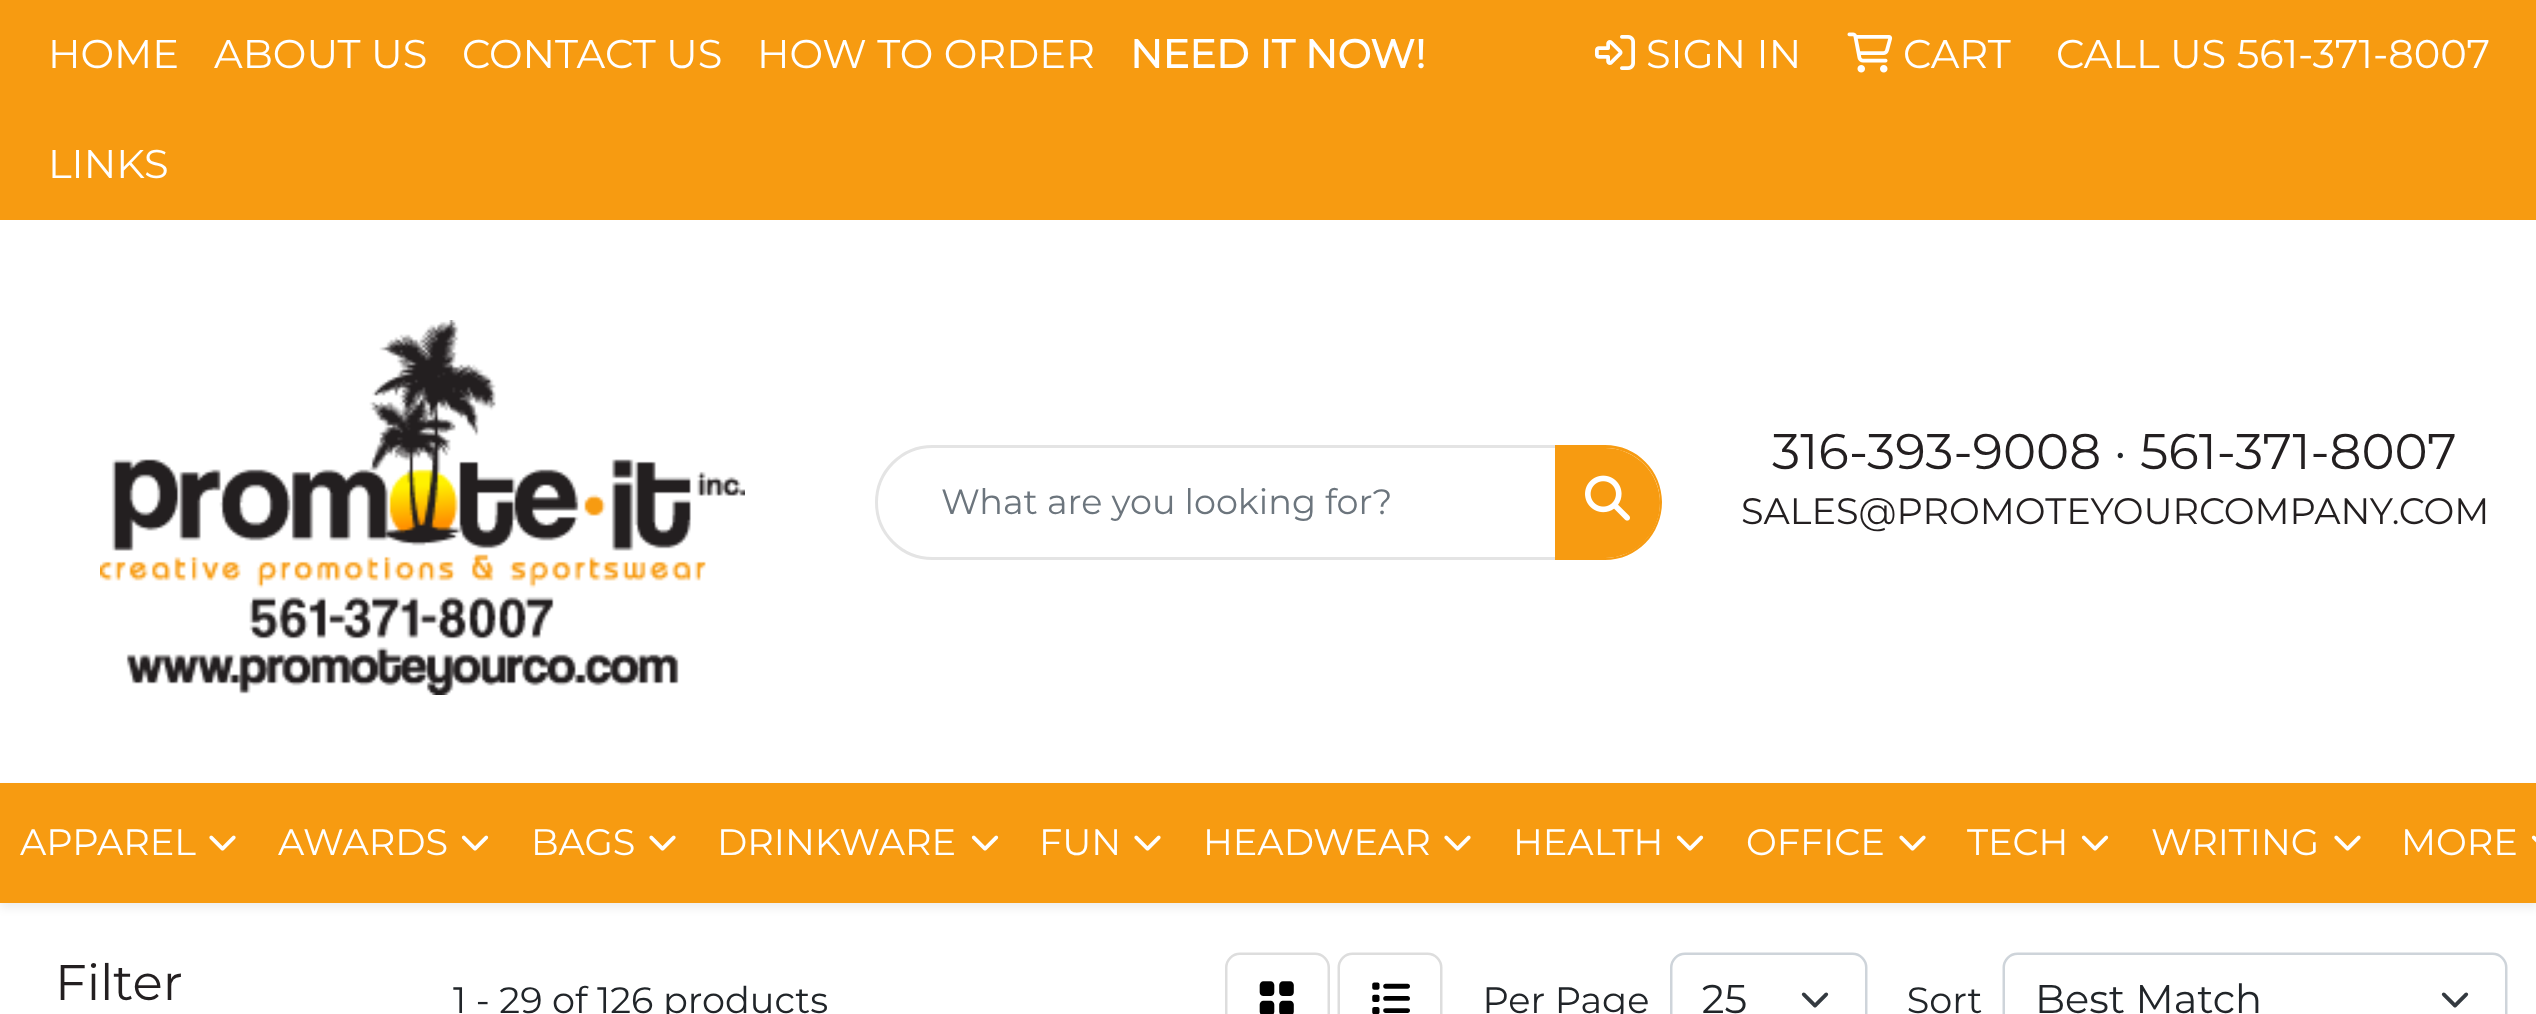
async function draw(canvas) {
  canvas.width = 2536
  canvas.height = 1014
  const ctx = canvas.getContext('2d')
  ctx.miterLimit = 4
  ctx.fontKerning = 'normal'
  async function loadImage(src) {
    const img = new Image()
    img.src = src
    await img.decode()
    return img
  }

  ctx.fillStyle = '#fff'
  ctx.fillRect(0, 0, 2536, 1014)
  ctx.fillStyle = '#f79b11'
  ctx.fillRect(0, 0, 2536, 220)
  ctx.font = '100 40px Montserrat'
  ctx.fillStyle = '#fff'
  ctx.fillText('HOME', 48, 68)
  ctx.fillText('ABOUT US', 214, 68)
  ctx.fillText('CONTACT US', 462, 68)
  ctx.fillText('HOW TO ORDER', 757, 68)
  ctx.font = 'bold 40px Montserrat'
  ctx.fillText('NEED IT NOW!', 1130, 68)
  ctx.font = '100 40px Montserrat'
  ctx.fillText('LINKS', 48, 178)
  ctx.drawImage(await loadImage('image0.png'), 1595, 35, 40, 35)
  ctx.fillText('SIGN IN', 1646, 68)
  ctx.drawImage(await loadImage('image1.png'), 1847, 32, 46, 41)
  ctx.fillText('CART', 1903, 68)
  ctx.fillText('CALL US 561-371-8007', 2056, 68)
  ctx.drawImage(await loadImage('image2.png'), 100, 320, 645, 375)
  ctx.beginPath()
  ctx.roundRect(876.5, 446.5, 680, 112, [56, 0, 0, 56])
  ctx.strokeStyle = '#e4e4e4'
  ctx.lineWidth = 3
  ctx.stroke()
  ctx.font = '100 35px Montserrat'
  ctx.fillStyle = '#6c757d'
  ctx.fillText('What are you looking for?', 941, 514)
  ctx.fillStyle = '#f79b11'
  ctx.beginPath()
  ctx.roundRect(1555, 448, 105, 110, [0, 55, 55, 0])
  ctx.fill()
  ctx.beginPath()
  ctx.moveTo(1555, 445)
  ctx.lineTo(1605, 445)
  ctx.bezierCurveTo(1637, 445, 1662, 471, 1662, 502)
  ctx.bezierCurveTo(1662, 534, 1637, 560, 1605, 560)
  ctx.lineTo(1555, 560)
  ctx.closePath()
  ctx.moveTo(1555, 448)
  ctx.lineTo(1605, 448)
  ctx.bezierCurveTo(1635, 448, 1660, 472, 1660, 502)
  ctx.bezierCurveTo(1660, 533, 1635, 558, 1605, 558)
  ctx.lineTo(1555, 558)
  ctx.closePath()
  ctx.fill('evenodd')
  ctx.drawImage(await loadImage('image3.png'), 1585, 475, 45, 46)
  ctx.font = '100 50px Montserrat'
  ctx.fillStyle = '#231f20'
  ctx.fillText('316-393-9008', 1772, 469)
  ctx.fillStyle = '#212529'
  ctx.fillText('·', 2114, 469)
  ctx.fillStyle = '#231f20'
  ctx.fillText('561-371-8007', 2140, 469)
  ctx.font = '100 36.7px Montserrat'
  ctx.fillText('SALES@PROMOTEYOURCOMPANY.COM', 1741, 524)
  ctx.fillStyle = '#00000012'
  ctx.filter = 'blur(5px)'
  ctx.beginPath()
  ctx.rect(0, 788, 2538, 120)
  ctx.fill()
  ctx.filter = 'none'
  ctx.fillStyle = '#f79b11'
  ctx.fillRect(0, 783, 2536, 120)
  ctx.fillStyle = '#fff'
  ctx.fillText('APPAREL', 20, 855)
  ctx.drawImage(await loadImage('image4.png'), 209, 835, 27, 16)
  ctx.fillText('AWARDS', 278, 855)
  ctx.drawImage(await loadImage('image5.png'), 461, 835, 28, 16)
  ctx.fillText('BAGS', 531, 855)
  ctx.drawImage(await loadImage('image4.png'), 649, 835, 27, 16)
  ctx.fillText('DRINKWARE', 717, 855)
  ctx.drawImage(await loadImage('image5.png'), 971, 835, 28, 16)
  ctx.fillText('FUN', 1039, 855)
  ctx.drawImage(await loadImage('image4.png'), 1134, 835, 27, 16)
  ctx.fillText('HEADWEAR', 1203, 855)
  ctx.drawImage(await loadImage('image4.png'), 1444, 835, 27, 16)
  ctx.fillText('HEALTH', 1513, 855)
  ctx.drawImage(await loadImage('image5.png'), 1676, 835, 28, 16)
  ctx.fillText('OFFICE', 1746, 855)
  ctx.drawImage(await loadImage('image4.png'), 1899, 835, 27, 16)
  ctx.fillText('TECH', 1967, 855)
  ctx.drawImage(await loadImage('image5.png'), 2081, 835, 28, 16)
  ctx.fillText('WRITING', 2151, 855)
  ctx.drawImage(await loadImage('image4.png'), 2334, 835, 27, 16)
  ctx.fillText('MORE', 2401, 855)
  ctx.drawImage(await loadImage('image6.png'), 2531, 835, 5, 8)
  ctx.drawImage(await loadImage('image7.png'), 60, 952, 2448, 62)
}

draw(document.querySelector('canvas'))
